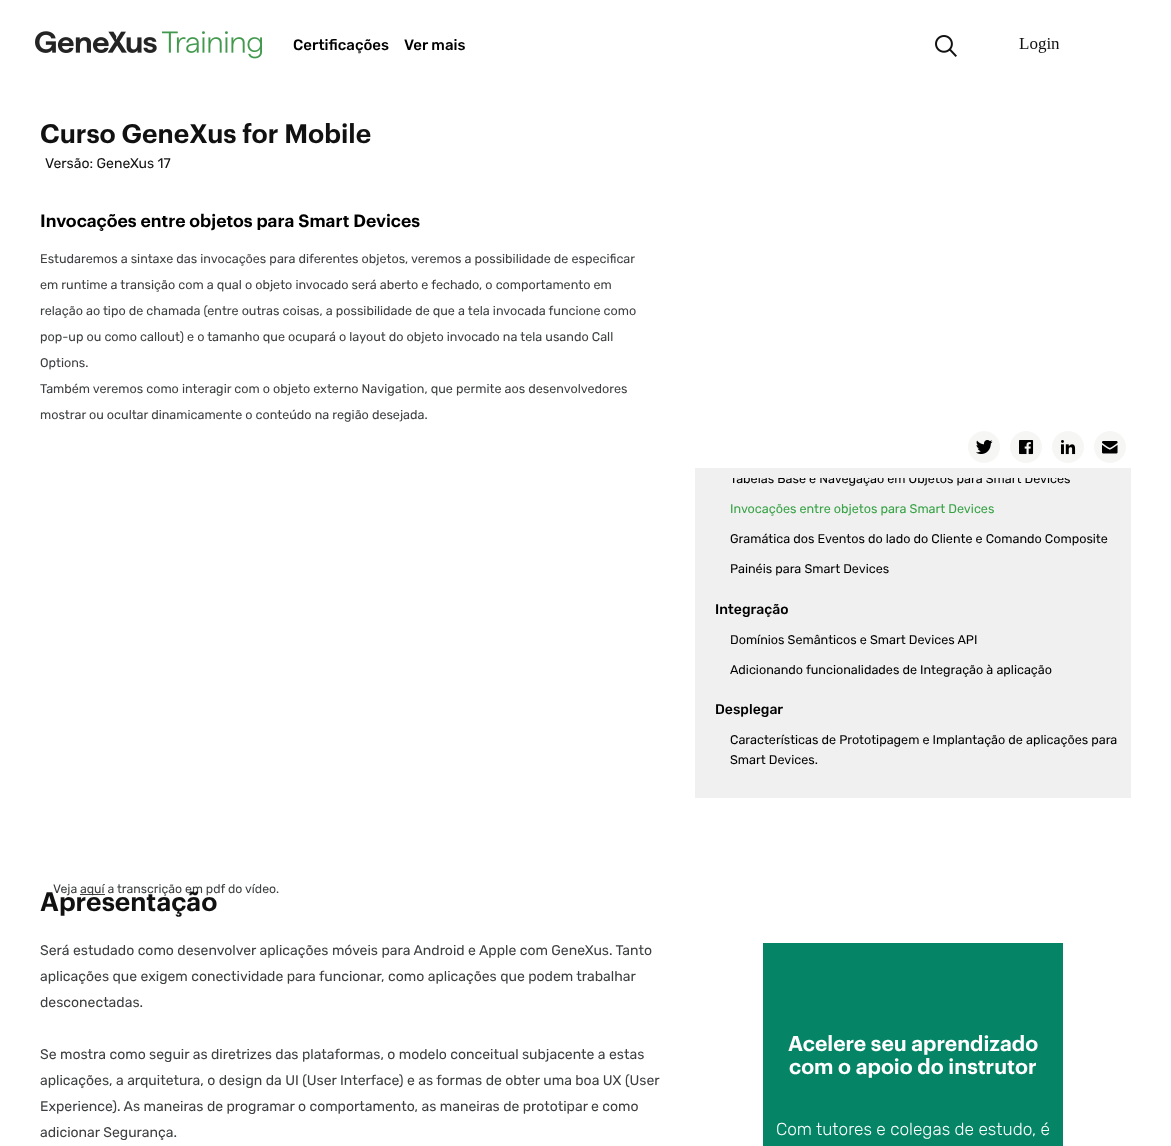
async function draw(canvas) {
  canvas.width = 1171
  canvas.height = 1146
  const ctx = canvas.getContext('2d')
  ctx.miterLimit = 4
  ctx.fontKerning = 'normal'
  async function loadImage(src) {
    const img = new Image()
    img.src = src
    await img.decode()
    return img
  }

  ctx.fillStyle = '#fff'
  ctx.fillRect(0, 0, 1171, 1146)
  ctx.drawImage(await loadImage('image0.png'), 35, 31, 227, 28)
  ctx.font = '500 15px Rubik'
  ctx.fillStyle = '#000'
  ctx.fillText('Certificações', 293, 50)
  ctx.fillText('Ver mais', 404, 50)
  ctx.drawImage(await loadImage('image1.png'), 935, 35, 22, 22)
  ctx.drawImage(await loadImage('image2.png'), 1019, 38, 41, 15)
  ctx.font = '600 26.25px Graphik'
  ctx.fillStyle = '#111'
  ctx.fillText('Curso GeneXus for Mobile', 40, 143)
  ctx.font = '14px Rubik'
  ctx.fillText('Versão: GeneXus 17', 45, 168)
  ctx.font = '600 17.5px Graphik'
  ctx.fillStyle = '#000'
  ctx.fillText('Invocações entre objetos para Smart Devices', 40, 227)
  ctx.font = '12.6px Rubik'
  ctx.fillStyle = '#3d3f40'
  ctx.fillText('Estudaremos a sintaxe das invocações para diferentes objetos, veremos a possibilidade de especificar', 40, 263)
  ctx.fillText('em runtime a transição com a qual o objeto invocado será aberto e fechado, o comportamento em', 40, 289)
  ctx.fillText('relação ao tipo de chamada (entre outras coisas, a possibilidade de que a tela invocada funcione como', 40, 315)
  ctx.fillText('pop-up ou como callout) e o tamanho que ocupará o layout do objeto invocado na tela usando Call', 40, 341)
  ctx.fillText('Options.', 40, 367)
  ctx.fillText('Também veremos como interagir com o objeto externo Navigation, que permite aos desenvolvedores', 40, 393)
  ctx.fillText('mostrar ou ocultar dinamicamente o conteúdo na região desejada.', 40, 419)
  ctx.drawImage(await loadImage('image3.png'), 968, 431, 32, 32)
  ctx.drawImage(await loadImage('image4.png'), 1010, 431, 32, 32)
  ctx.drawImage(await loadImage('image5.png'), 1052, 431, 32, 32)
  ctx.drawImage(await loadImage('image6.png'), 1094, 431, 32, 32)
  ctx.fillStyle = '#f0f0f0'
  ctx.fillRect(695, 468, 436, 330)
  ctx.save()
  ctx.beginPath()
  ctx.rect(715, 478, 411, 320)
  ctx.clip()
  ctx.fillStyle = '#000'
  ctx.fillText('Tabelas Base e Navegação em Objetos para Smart Devices', 730, 483)
  ctx.restore()
  ctx.fillStyle = '#38a347'
  ctx.fillText('Invocações entre objetos para Smart Devices', 730, 513)
  ctx.fillStyle = '#000'
  ctx.fillText('Gramática dos Eventos do lado do Cliente e Comando Composite', 730, 543)
  ctx.fillText('Painéis para Smart Devices', 730, 573)
  ctx.font = '500 14px Rubik'
  ctx.fillText('Integração', 715, 614)
  ctx.font = '12.6px Rubik'
  ctx.fillText('Domínios Semânticos e Smart Devices API', 730, 644)
  ctx.fillText('Adicionando funcionalidades de Integração à aplicação', 730, 674)
  ctx.font = '500 14px Rubik'
  ctx.fillText('Desplegar', 715, 714)
  ctx.font = '12.6px Rubik'
  ctx.fillText('Características de Prototipagem e Implantação de aplicações para', 730, 744)
  ctx.fillText('Smart Devices.', 730, 764)
  ctx.font = '12.3px Rubik'
  ctx.fillStyle = '#3d3f40'
  ctx.fillText('Veja', 53, 893)
  ctx.fillRect(80, 894, 25, 1)
  ctx.fillText('aquí a transcrição em pdf do vídeo.', 80, 893)
  ctx.font = '600 26.25px Graphik'
  ctx.fillStyle = '#111'
  ctx.fillText('Apresentação', 40, 911)
  ctx.font = '14px Rubik'
  ctx.fillStyle = '#3d3f40'
  ctx.fillText('Será estudado como desenvolver aplicações móveis para Android e Apple com GeneXus. Tanto', 40, 955)
  ctx.fillText('aplicações que exigem conectividade para funcionar, como aplicações que podem trabalhar', 40, 981)
  ctx.fillText('desconectadas.', 40, 1007)
  ctx.fillText('Se mostra como seguir as diretrizes das plataformas, o modelo conceitual subjacente a estas', 40, 1059)
  ctx.fillText('aplicações, a arquitetura, o design da UI (User Interface) e as formas de obter uma boa UX (User', 40, 1085)
  ctx.fillText('Experience). As maneiras de programar o comportamento, as maneiras de prototipar e como', 40, 1111)
  ctx.fillText('adicionar Segurança.', 40, 1137)
  ctx.fillStyle = '#068466'
  ctx.fillRect(763, 943, 300, 203)
  ctx.font = '600 21px Graphik'
  ctx.fillStyle = '#fff'
  ctx.fillText('Acelere seu aprendizado', 788, 1051)
  ctx.fillText('com o apoio do instrutor', 789, 1074)
  ctx.font = '300 17.25px Rubik'
  ctx.fillText('Com tutores e colegas de estudo, é', 776, 1135)
}

draw(document.querySelector('canvas'))
